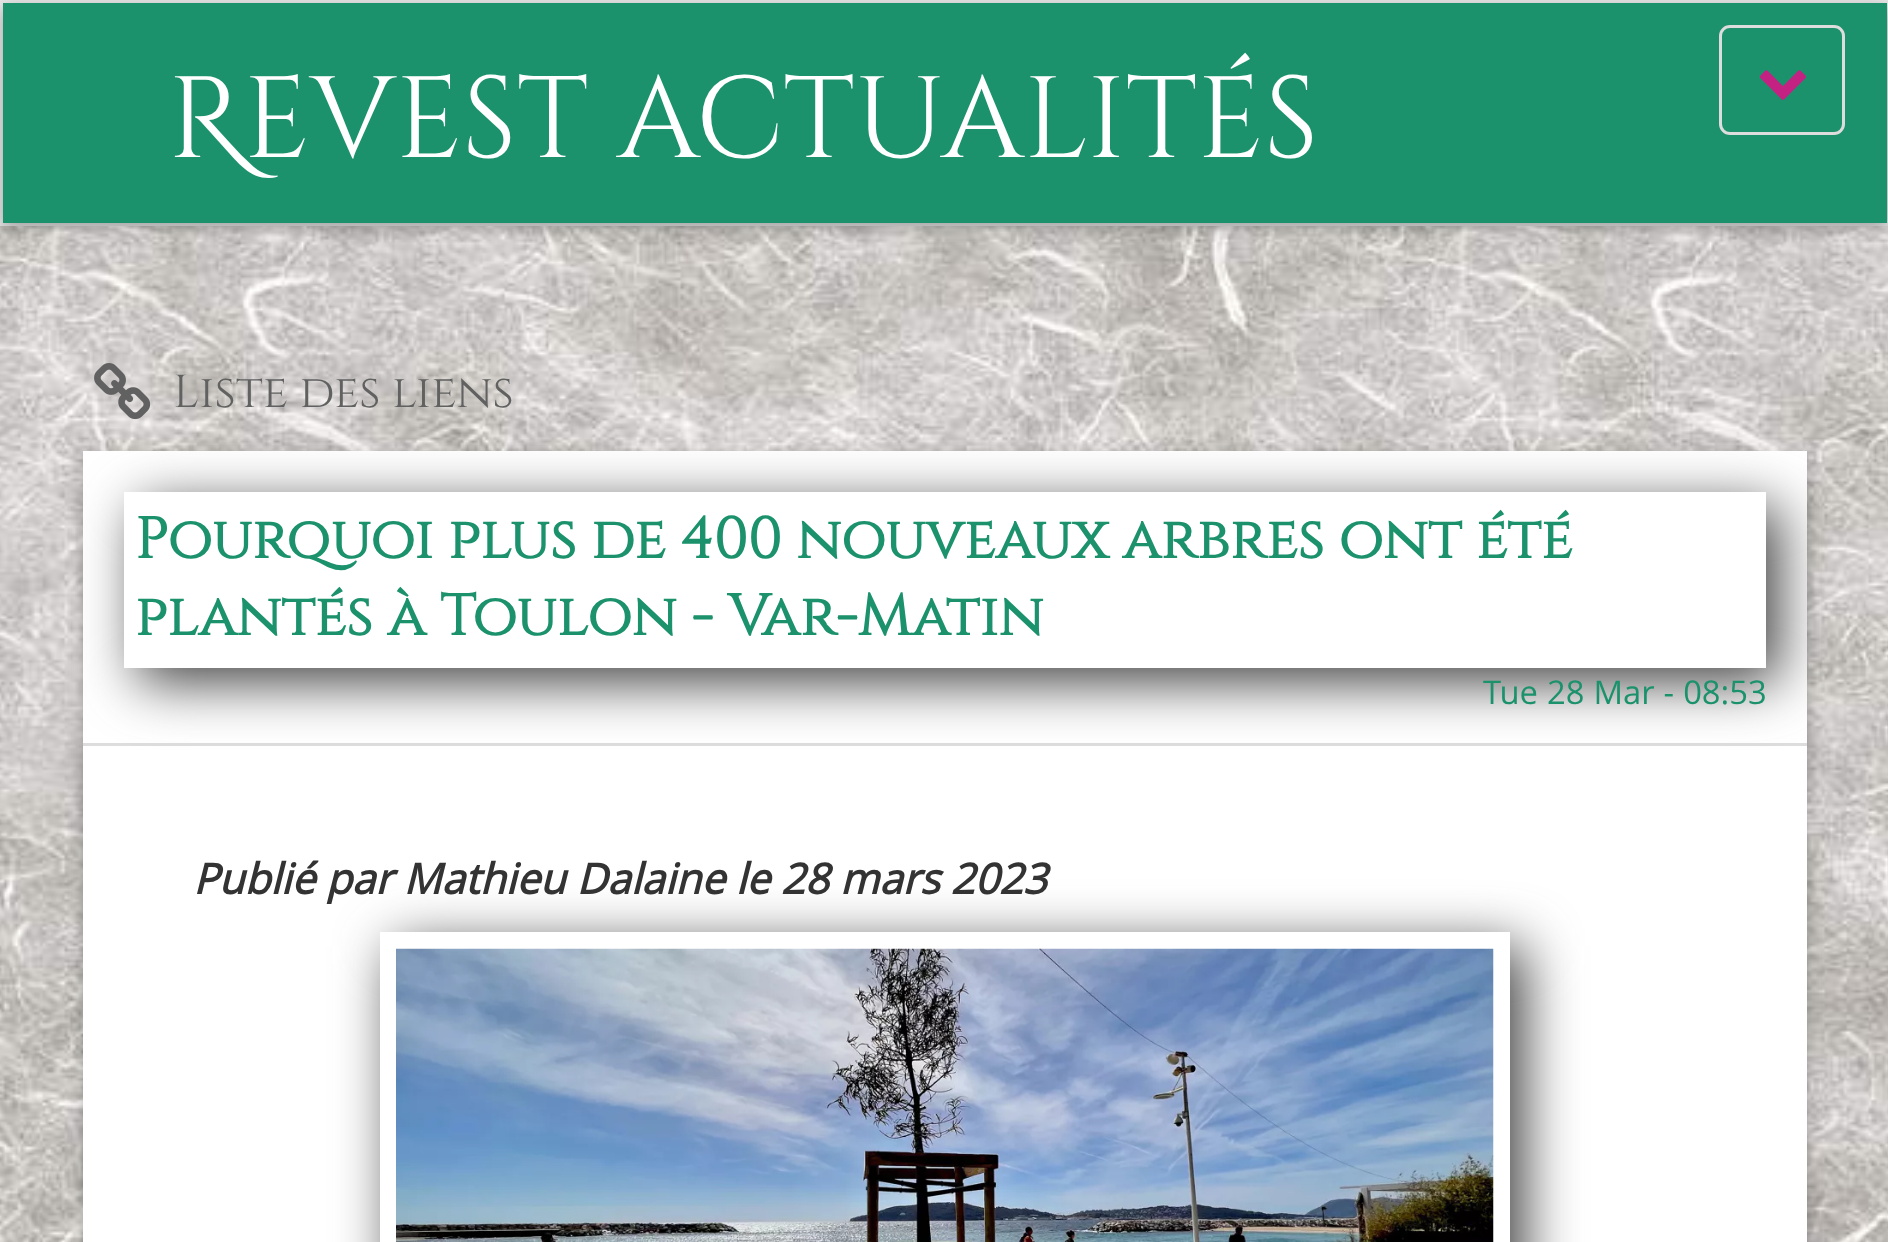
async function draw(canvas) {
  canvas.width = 1888
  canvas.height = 1242
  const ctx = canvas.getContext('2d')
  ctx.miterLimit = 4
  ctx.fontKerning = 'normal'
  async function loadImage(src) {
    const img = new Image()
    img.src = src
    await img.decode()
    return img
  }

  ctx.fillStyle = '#fff'
  ctx.fillRect(0, 0, 1888, 1242)
  ctx.drawImage(await loadImage('image0.png'), 0, 226, 1888, 1016)
  ctx.strokeStyle = '#e7e7e7'
  ctx.lineWidth = 3
  ctx.strokeRect(1.5, 1.5, 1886, 223)
  ctx.fillStyle = '#32323266'
  ctx.filter = 'blur(8px)'
  ctx.beginPath()
  ctx.rect(3, 8, 1884, 220)
  ctx.fill()
  ctx.filter = 'none'
  ctx.fillStyle = '#1b926c'
  ctx.fillRect(3, 3, 1884, 220)
  ctx.font = '115.5px Cinzel Decorative'
  ctx.fillStyle = '#fff'
  ctx.fillText('Revest actualités', 168, 157)
  ctx.beginPath()
  ctx.roundRect(1720.5, 26.5, 123, 107, 9.5)
  ctx.strokeStyle = '#ddd'
  ctx.stroke()
  ctx.drawImage(await loadImage('image1.png'), 1759, 70, 47, 30)
  ctx.drawImage(await loadImage('image2.png'), 94, 363, 57, 57)
  ctx.font = '46.25px Cinzel'
  ctx.fillStyle = '#616161'
  ctx.fillText('Liste des liens', 173, 407)
  ctx.fillStyle = '#32323266'
  ctx.filter = 'blur(8px)'
  ctx.beginPath()
  ctx.rect(83, 457, 1724, 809)
  ctx.fill()
  ctx.filter = 'none'
  ctx.fillStyle = '#fff'
  ctx.fillRect(83, 451, 1724, 791)
  ctx.fillStyle = '#ddd'
  ctx.fillRect(83, 743, 1724, 3)
  ctx.save()
  ctx.beginPath()
  ctx.moveTo(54, 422)
  ctx.lineTo(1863, 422)
  ctx.lineTo(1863, 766)
  ctx.lineTo(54, 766)
  ctx.closePath()
  ctx.moveTo(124, 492)
  ctx.lineTo(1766, 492)
  ctx.lineTo(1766, 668)
  ctx.lineTo(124, 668)
  ctx.closePath()
  ctx.clip('evenodd')
  ctx.fillStyle = '#404040'
  ctx.filter = 'blur(27.5px)'
  ctx.beginPath()
  ctx.rect(138, 506, 1641, 176)
  ctx.fill()
  ctx.filter = 'none'
  ctx.restore()
  ctx.font = 'bold 57.75px Cinzel'
  ctx.fillStyle = '#1b926c'
  ctx.fillText('Pourquoi plus de 400 nouveaux arbres ont été', 135, 558)
  ctx.fillText('plantés à Toulon - Var-Matin', 135, 635)
  ctx.wordSpacing = '0.5px'
  ctx.font = '32.75px Open Sans'
  ctx.fillText('Tue 28 Mar - 08:53', 1483, 704)
  ctx.save()
  ctx.beginPath()
  ctx.moveTo(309, 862)
  ctx.lineTo(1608, 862)
  ctx.lineTo(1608, 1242)
  ctx.lineTo(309, 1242)
  ctx.closePath()
  ctx.moveTo(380, 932)
  ctx.lineTo(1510, 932)
  ctx.lineTo(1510, 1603)
  ctx.lineTo(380, 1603)
  ctx.closePath()
  ctx.clip('evenodd')
  ctx.fillStyle = '#404040'
  ctx.filter = 'blur(27.5px)'
  ctx.beginPath()
  ctx.rect(393, 946, 1131, 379)
  ctx.fill()
  ctx.filter = 'none'
  ctx.restore()
  ctx.wordSpacing = '0px'
  ctx.font = 'italic bold 42.1px Open Sans'
  ctx.fillStyle = '#333'
  ctx.fillText('Publié par Mathieu Dalaine le 28 mars 2023', 193, 894)
  ctx.drawImage(await loadImage('image3.png'), 396, 948, 1098, 294)
}

draw(document.querySelector('canvas'))
